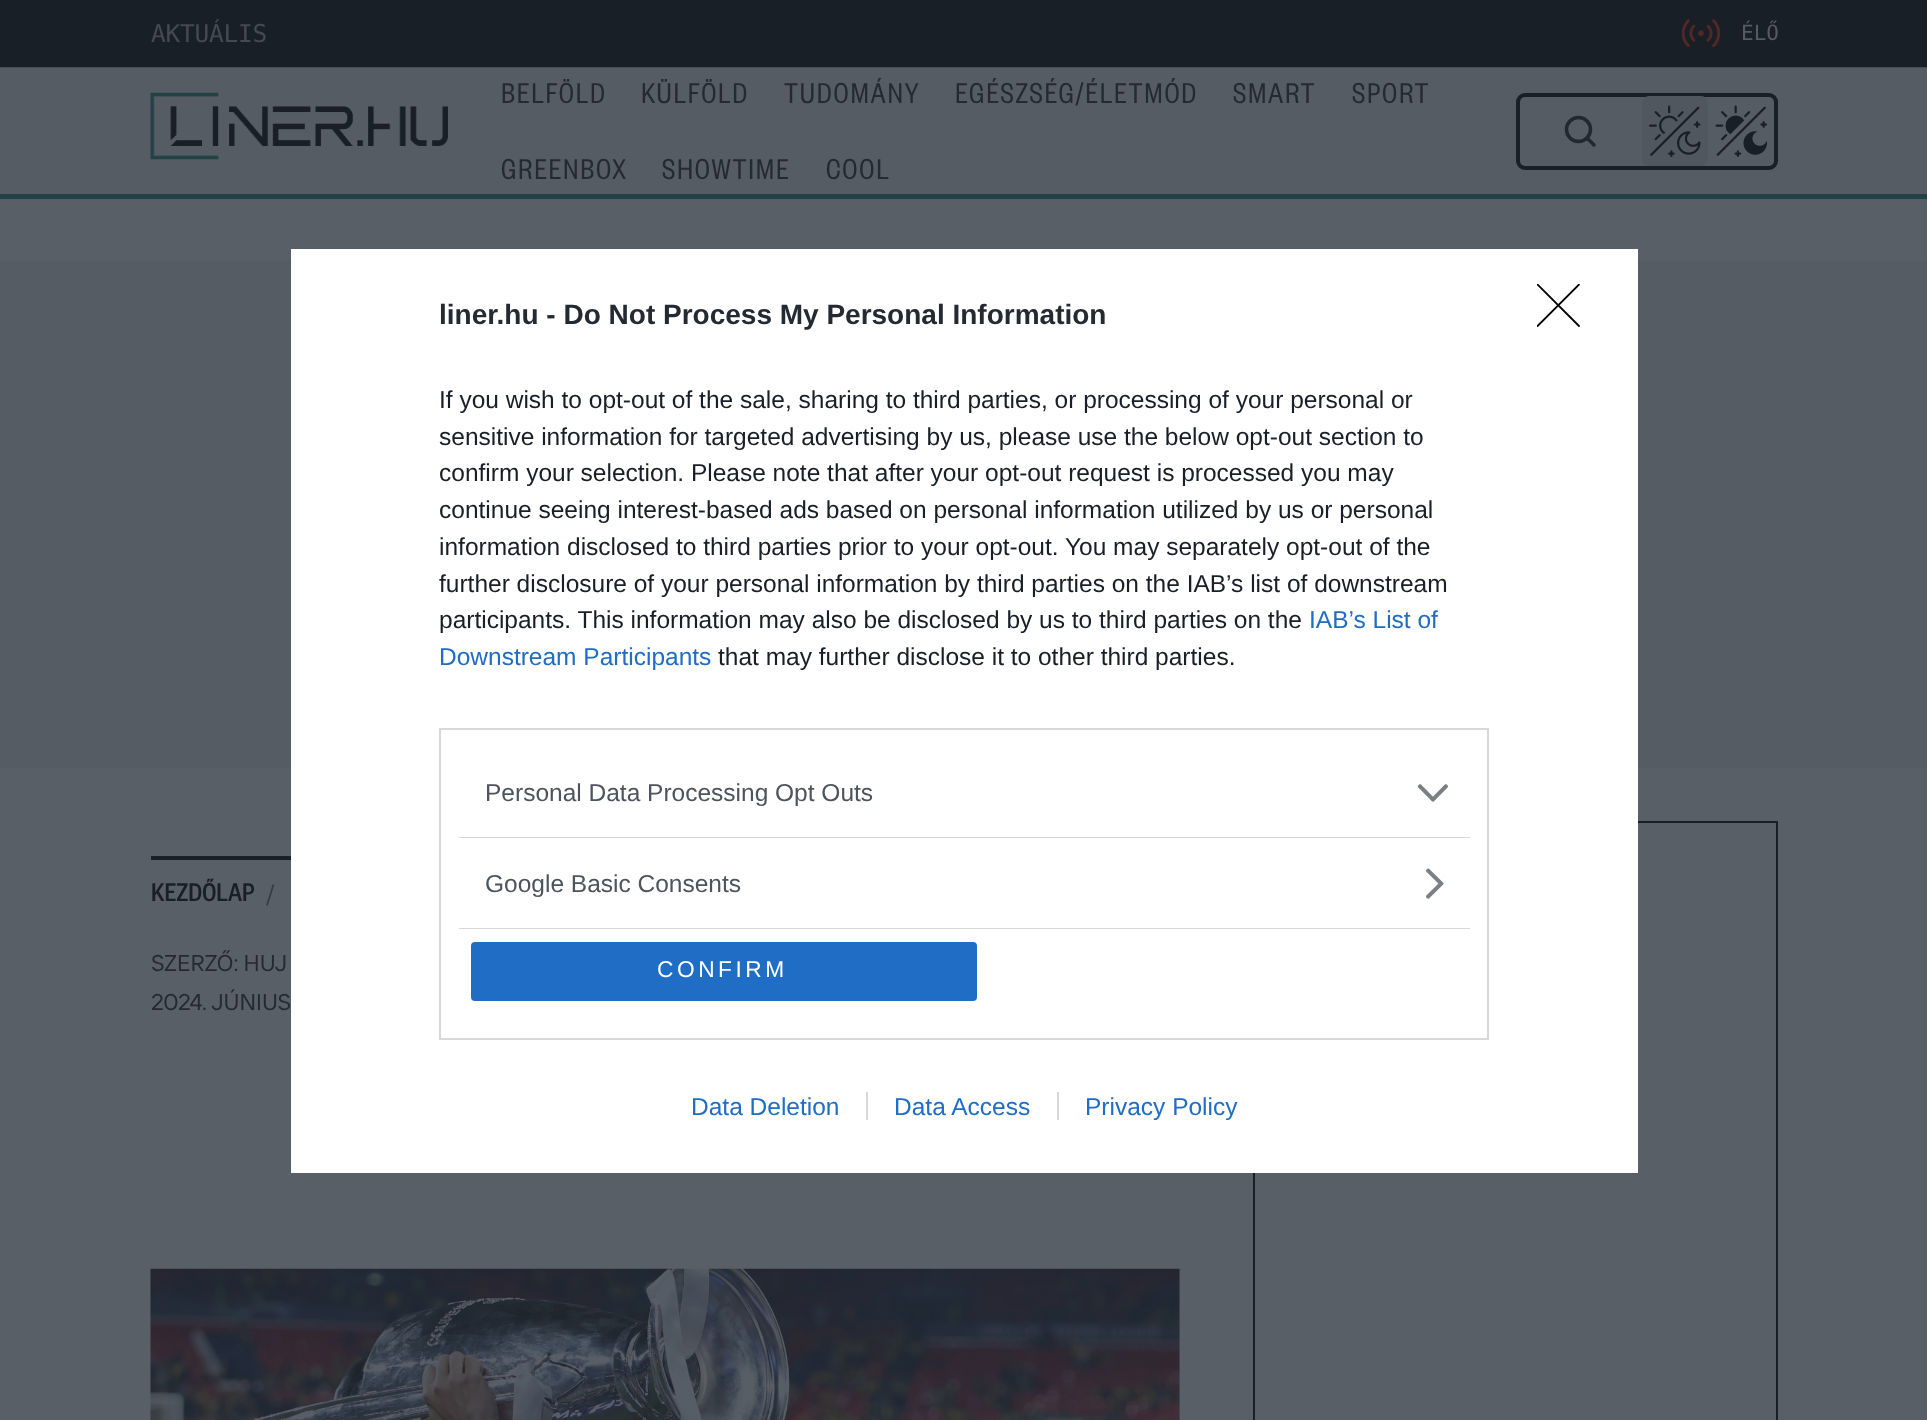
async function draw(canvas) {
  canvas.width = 1927
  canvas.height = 1420
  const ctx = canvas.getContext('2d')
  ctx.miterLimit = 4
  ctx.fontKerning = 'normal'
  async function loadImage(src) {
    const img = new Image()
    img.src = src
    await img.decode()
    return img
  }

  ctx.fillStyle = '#595f67'
  ctx.fillRect(0, 0, 1927, 1420)
  ctx.fillStyle = '#191f27'
  ctx.fillRect(0, 0, 1927, 67)
  ctx.fillStyle = '#484e56'
  ctx.fillRect(0, 67, 1927, 1)
  ctx.letterSpacing = '-0.25px'
  ctx.font = '24.5px DejaVu Sans Mono'
  ctx.fillStyle = '#444a52'
  ctx.fillText('AKTUÁLIS', 151, 42)
  ctx.drawImage(await loadImage('image0.png'), 1682, 19, 38, 28)
  ctx.letterSpacing = '0px'
  ctx.font = '21px DejaVu Sans Mono'
  ctx.fillStyle = '#555b64'
  ctx.fillText('ÉLŐ', 1741, 40)
  ctx.fillStyle = '#565c64'
  ctx.fillRect(0, 68, 1927, 132)
  ctx.fillStyle = '#224248'
  ctx.fillRect(0, 194, 1927, 5)
  ctx.drawImage(await loadImage('image1.png'), 150, 92, 298, 68)
  ctx.letterSpacing = '1.75px'
  ctx.font = '31.5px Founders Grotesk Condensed'
  ctx.fillStyle = '#242a32'
  ctx.fillText('BELFÖLD', 501, 103)
  ctx.fillText('KÜLFÖLD', 641, 103)
  ctx.fillText('TUDOMÁNY', 784, 103)
  ctx.fillText('EGÉSZSÉG/ÉLETMÓD', 955, 103)
  ctx.fillText('SMART', 1233, 103)
  ctx.fillText('SPORT', 1352, 103)
  ctx.fillText('GREENBOX', 501, 179)
  ctx.fillText('SHOWTIME', 662, 179)
  ctx.fillText('COOL', 826, 179)
  ctx.beginPath()
  ctx.roundRect(1518, 95, 258, 73, 7)
  ctx.strokeStyle = '#191f27'
  ctx.lineWidth = 4
  ctx.stroke()
  ctx.beginPath()
  ctx.arc(1578.5, 129.5, 12, 0, 2 * Math.PI)
  ctx.strokeStyle = '#212831'
  ctx.lineWidth = 3.5
  ctx.stroke()
  ctx.beginPath()
  ctx.moveTo(1587, 138)
  ctx.lineTo(1594, 145)
  ctx.lineCap = 'round'
  ctx.lineJoin = 'round'
  ctx.stroke()
  ctx.fillStyle = '#51575f'
  ctx.beginPath()
  ctx.roundRect(1642, 96, 66, 70, 7)
  ctx.fill()
  ctx.drawImage(await loadImage('image2.png'), 1649, 105, 52, 52)
  ctx.drawImage(await loadImage('image3.png'), 1715, 105, 52, 52)
  ctx.fillStyle = '#565c64'
  ctx.fillRect(0, 261, 1927, 507)
  ctx.fillStyle = '#191f27'
  ctx.fillRect(151, 856, 140, 4)
  ctx.letterSpacing = '0px'
  ctx.font = '500 28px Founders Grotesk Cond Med'
  ctx.fillText('KEZDŐLAP', 151, 901)
  ctx.font = '22.75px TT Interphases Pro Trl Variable'
  ctx.fillStyle = '#343c46'
  ctx.fillText('/', 266, 901)
  ctx.fillStyle = '#242a32'
  ctx.fillText('SZERZŐ: HUJ', 151, 971)
  ctx.fillText('2024. JÚNIUS', 151, 1010)
  ctx.fillStyle = '#555b63'
  ctx.fillRect(1179, 1269, 1, 151)
  ctx.drawImage(await loadImage('image4.png'), 150, 1268, 1030, 152)
  ctx.strokeStyle = '#191f27'
  ctx.lineWidth = 2
  ctx.lineJoin = 'miter'
  ctx.strokeRect(1254, 822, 523, 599)
  ctx.fillStyle = '#fff'
  ctx.fillRect(291, 249, 1347, 924)
  ctx.font = 'bold 28px Liberation Sans'
  ctx.fillStyle = '#242a32'
  ctx.fillText('liner.hu - Do Not Process My Personal Information', 439, 324)
  ctx.font = '24.5px Liberation Sans'
  ctx.fillStyle = '#191f27'
  ctx.fillText('If you wish to opt-out of the sale, sharing to third parties, or processing of your personal or', 439, 408)
  ctx.fillText('sensitive information for targeted advertising by us, please use the below opt-out section to', 439, 445)
  ctx.fillText('confirm your selection. Please note that after your opt-out request is processed you may', 439, 481)
  ctx.fillText('continue seeing interest-based ads based on personal information utilized by us or personal', 439, 518)
  ctx.fillText('information disclosed to third parties prior to your opt-out. You may separately opt-out of the', 439, 555)
  ctx.fillText('further disclosure of your personal information by third parties on the IAB’s list of downstream', 439, 592)
  ctx.fillText('participants. This information may also be disclosed by us to third parties on the', 439, 628)
  ctx.fillStyle = '#206dc5'
  ctx.fillText('IAB’s List of', 1309, 628)
  ctx.fillText('Downstream Participants', 439, 665)
  ctx.fillStyle = '#191f27'
  ctx.fillText('that may further disclose it to other third parties.', 718, 665)
  ctx.strokeStyle = '#d8d8d8'
  ctx.strokeRect(440, 729, 1048, 310)
  ctx.fillStyle = '#d8d8d8'
  ctx.fillRect(459, 837, 1011, 1)
  ctx.fillStyle = '#4d545d'
  ctx.fillText('Personal Data Processing Opt Outs', 485, 801)
  ctx.drawImage(await loadImage('image5.png'), 1417, 784, 31, 18)
  ctx.fillStyle = '#d8d8d8'
  ctx.fillRect(459, 928, 1011, 1)
  ctx.fillStyle = '#4d545d'
  ctx.fillText('Google Basic Consents', 485, 892)
  ctx.drawImage(await loadImage('image6.png'), 1426, 868, 18, 31)
  ctx.fillStyle = '#206dc5'
  ctx.beginPath()
  ctx.roundRect(471, 942, 506, 59, 4)
  ctx.fill()
  ctx.letterSpacing = '3.5px'
  ctx.font = '22.75px Liberation Sans'
  ctx.fillStyle = '#fff'
  ctx.fillText('CONFIRM', 657, 977)
  ctx.save()
  ctx.beginPath()
  ctx.rect(1537, 284, 43, 43)
  ctx.clip()
  ctx.beginPath()
  ctx.moveTo(1537.5, 284.5)
  ctx.lineTo(1579, 326)
  ctx.moveTo(1579, 284.5)
  ctx.lineTo(1537.5, 326)
  ctx.strokeStyle = '#000'
  ctx.lineWidth = 1.8
  ctx.lineJoin = 'round'
  ctx.stroke()
  ctx.restore()
  ctx.letterSpacing = '0px'
  ctx.font = '24.5px Liberation Sans'
  ctx.fillStyle = '#206dc5'
  ctx.fillText('Data Deletion', 691, 1115)
  ctx.fillText('Data Access', 894, 1115)
  ctx.fillStyle = '#d8d8d8'
  ctx.fillRect(866, 1092, 2, 28)
  ctx.fillStyle = '#206dc5'
  ctx.fillText('Privacy Policy', 1085, 1115)
  ctx.fillStyle = '#d8d8d8'
  ctx.fillRect(1057, 1092, 2, 28)
}

draw(document.querySelector('canvas'))
